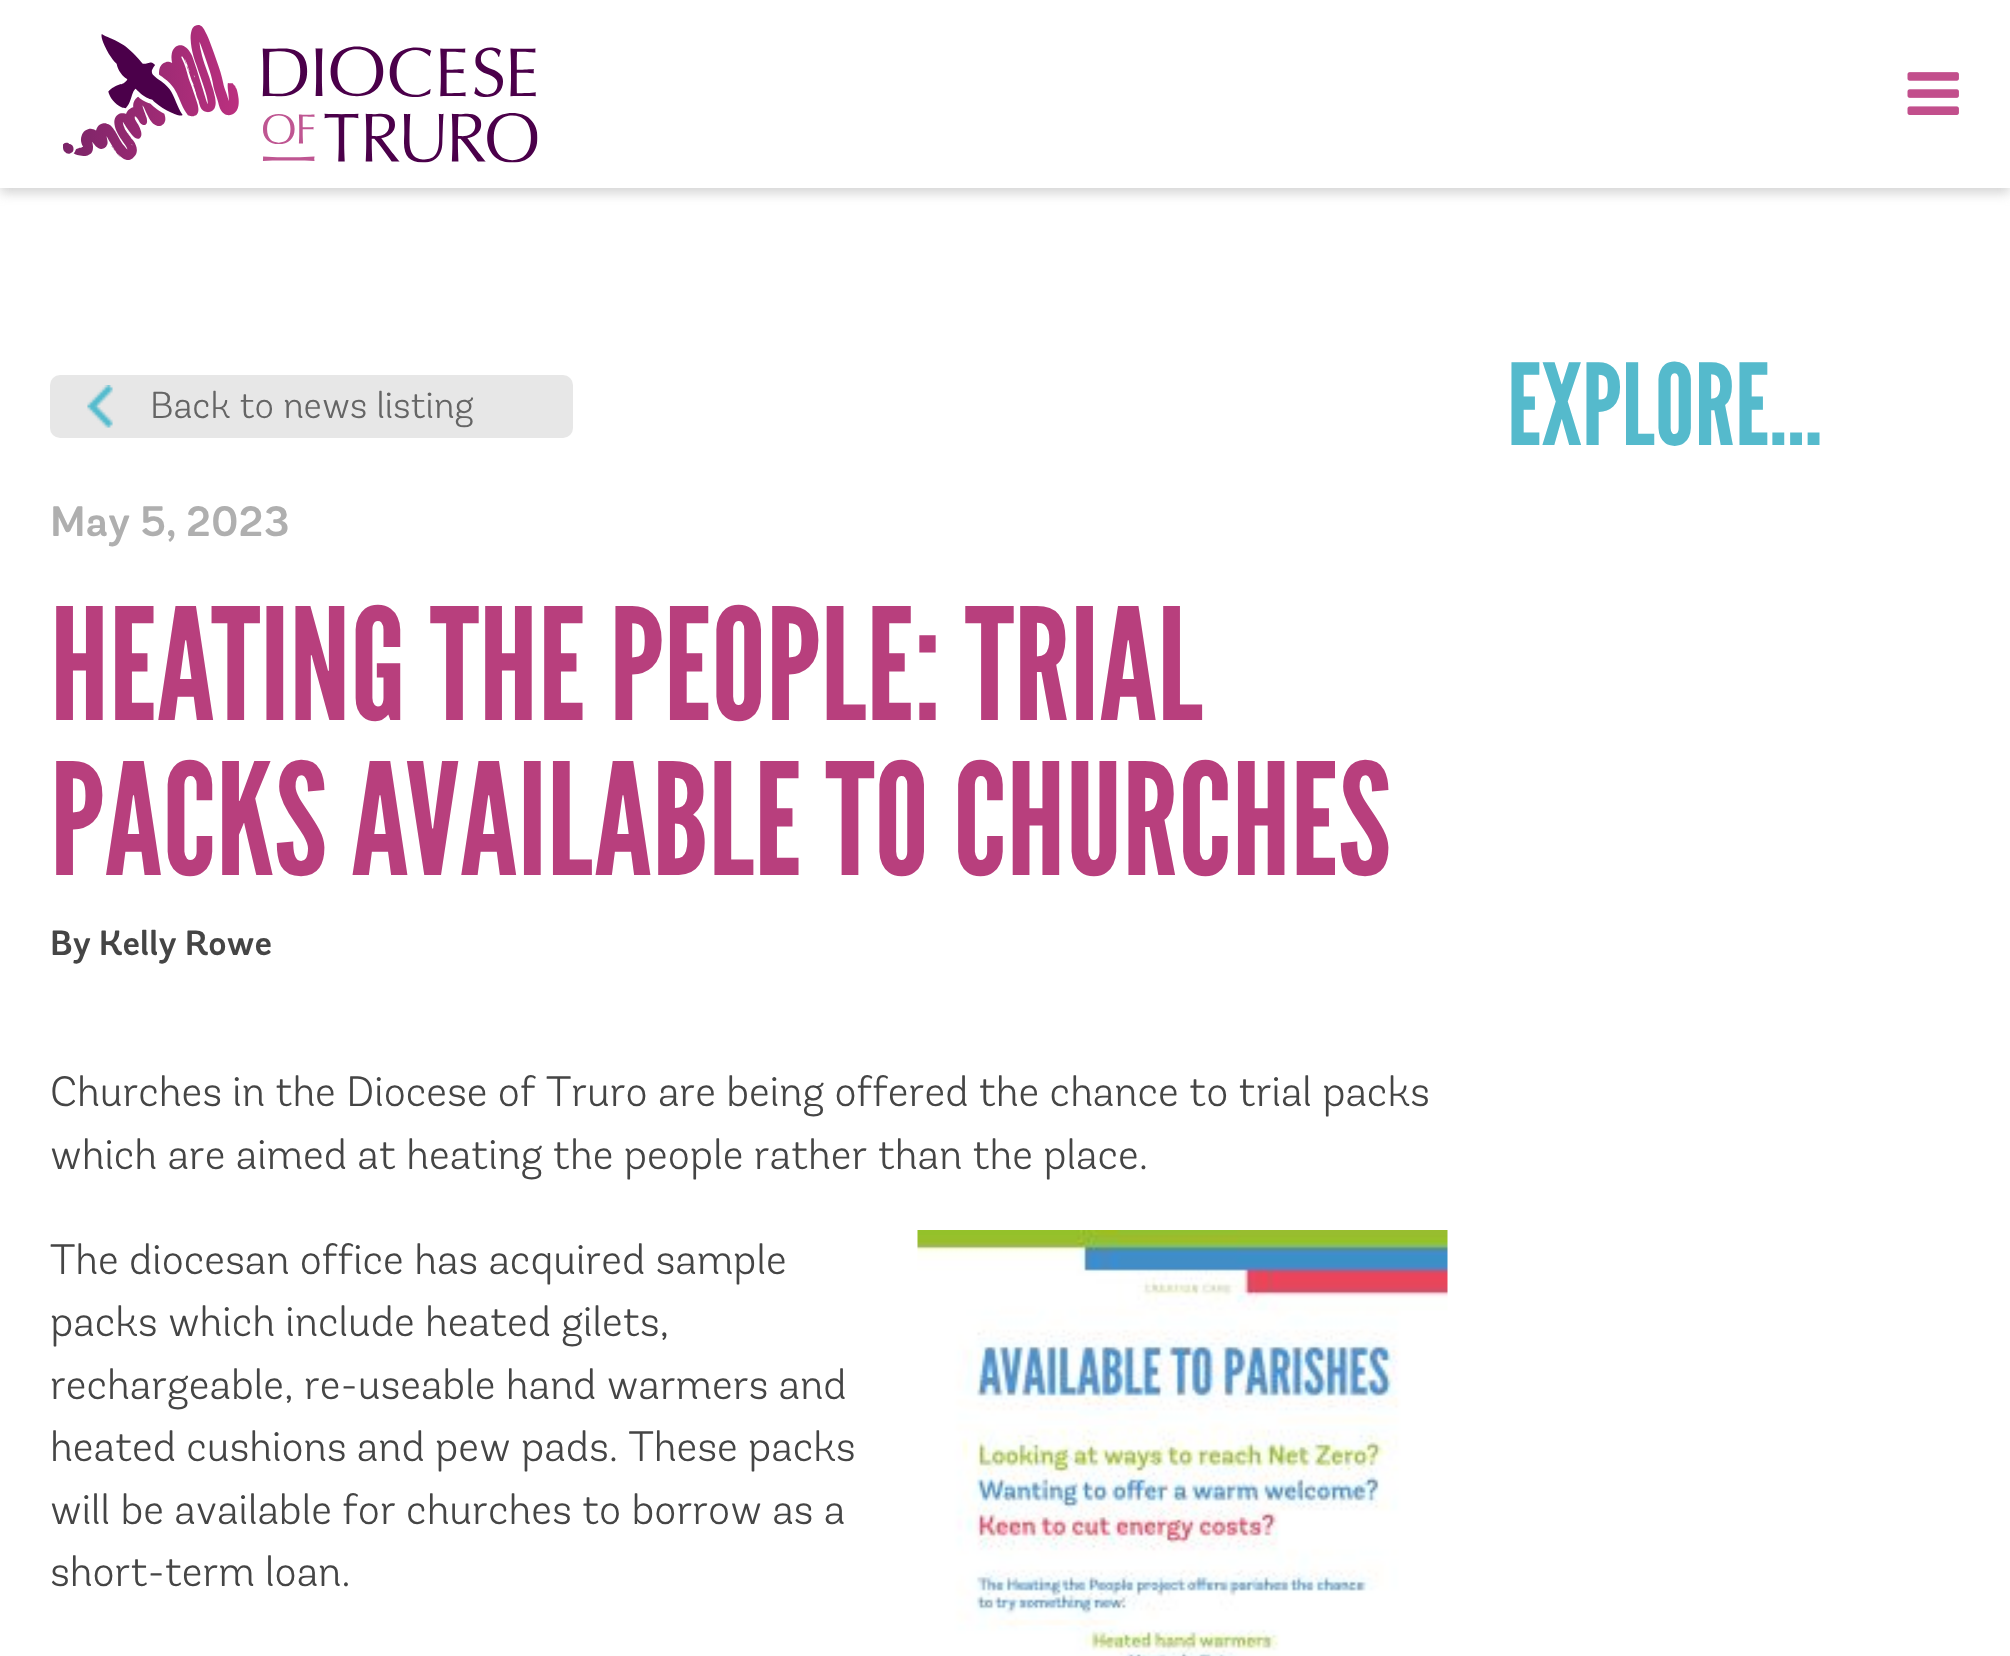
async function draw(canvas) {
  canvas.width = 2010
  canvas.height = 1656
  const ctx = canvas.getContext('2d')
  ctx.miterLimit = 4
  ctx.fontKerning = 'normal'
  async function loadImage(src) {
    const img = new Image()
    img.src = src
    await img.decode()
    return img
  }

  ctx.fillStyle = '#fff'
  ctx.fillRect(0, 0, 2010, 1656)
  ctx.fillStyle = '#a8a8a880'
  ctx.filter = 'blur(6px)'
  ctx.beginPath()
  ctx.rect(0, 5, 2010, 188)
  ctx.fill()
  ctx.filter = 'none'
  ctx.fillStyle = '#fff'
  ctx.fillRect(0, 0, 2010, 188)
  ctx.drawImage(await loadImage('image0.png'), 63, 25, 475, 138)
  ctx.drawImage(await loadImage('image1.png'), 1907, 72, 52, 43)
  ctx.fillStyle = '#e7e7e7'
  ctx.beginPath()
  ctx.roundRect(50, 375, 523, 63, 10)
  ctx.fill()
  ctx.drawImage(await loadImage('image2.png'), 87, 385, 26, 43)
  ctx.font = '37.5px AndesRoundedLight'
  ctx.fillStyle = '#656565'
  ctx.fillText('Back to news listing', 150, 418)
  ctx.font = '42.5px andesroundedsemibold'
  ctx.fillStyle = '#afafaf'
  ctx.fillText('May 5, 2023', 50, 536)
  ctx.font = '155px League Gothic'
  ctx.fillStyle = '#b83f7d'
  ctx.fillText('HEATING THE PEOPLE: TRIAL', 50, 720)
  ctx.fillText('PACKS AVAILABLE TO CHURCHES', 50, 875)
  ctx.font = '35px andesroundedsemibold'
  ctx.fillStyle = '#454545'
  ctx.fillText('By Kelly Rowe', 50, 955)
  ctx.font = '42.5px AndesRoundedLight'
  ctx.fillText('Churches in the Diocese of Truro are being offered the chance to trial packs', 50, 1106)
  ctx.fillText('which are aimed at heating the people rather than the place.', 50, 1169)
  ctx.fillText('The diocesan office has acquired sample', 50, 1274)
  ctx.drawImage(await loadImage('image3.png'), 917, 1230, 531, 426)
  ctx.fillText('packs which include heated gilets,', 50, 1336)
  ctx.fillText('rechargeable, re-useable hand warmers and', 50, 1399)
  ctx.fillText('heated cushions and pew pads. These packs', 50, 1461)
  ctx.fillText('will be available for churches to borrow as a', 50, 1524)
  ctx.fillText('short-term loan.', 50, 1586)
  ctx.font = '112.5px League Gothic'
  ctx.fillStyle = '#55bacc'
  ctx.fillText('EXPLORE...', 1507, 445)
}

draw(document.querySelector('canvas'))
